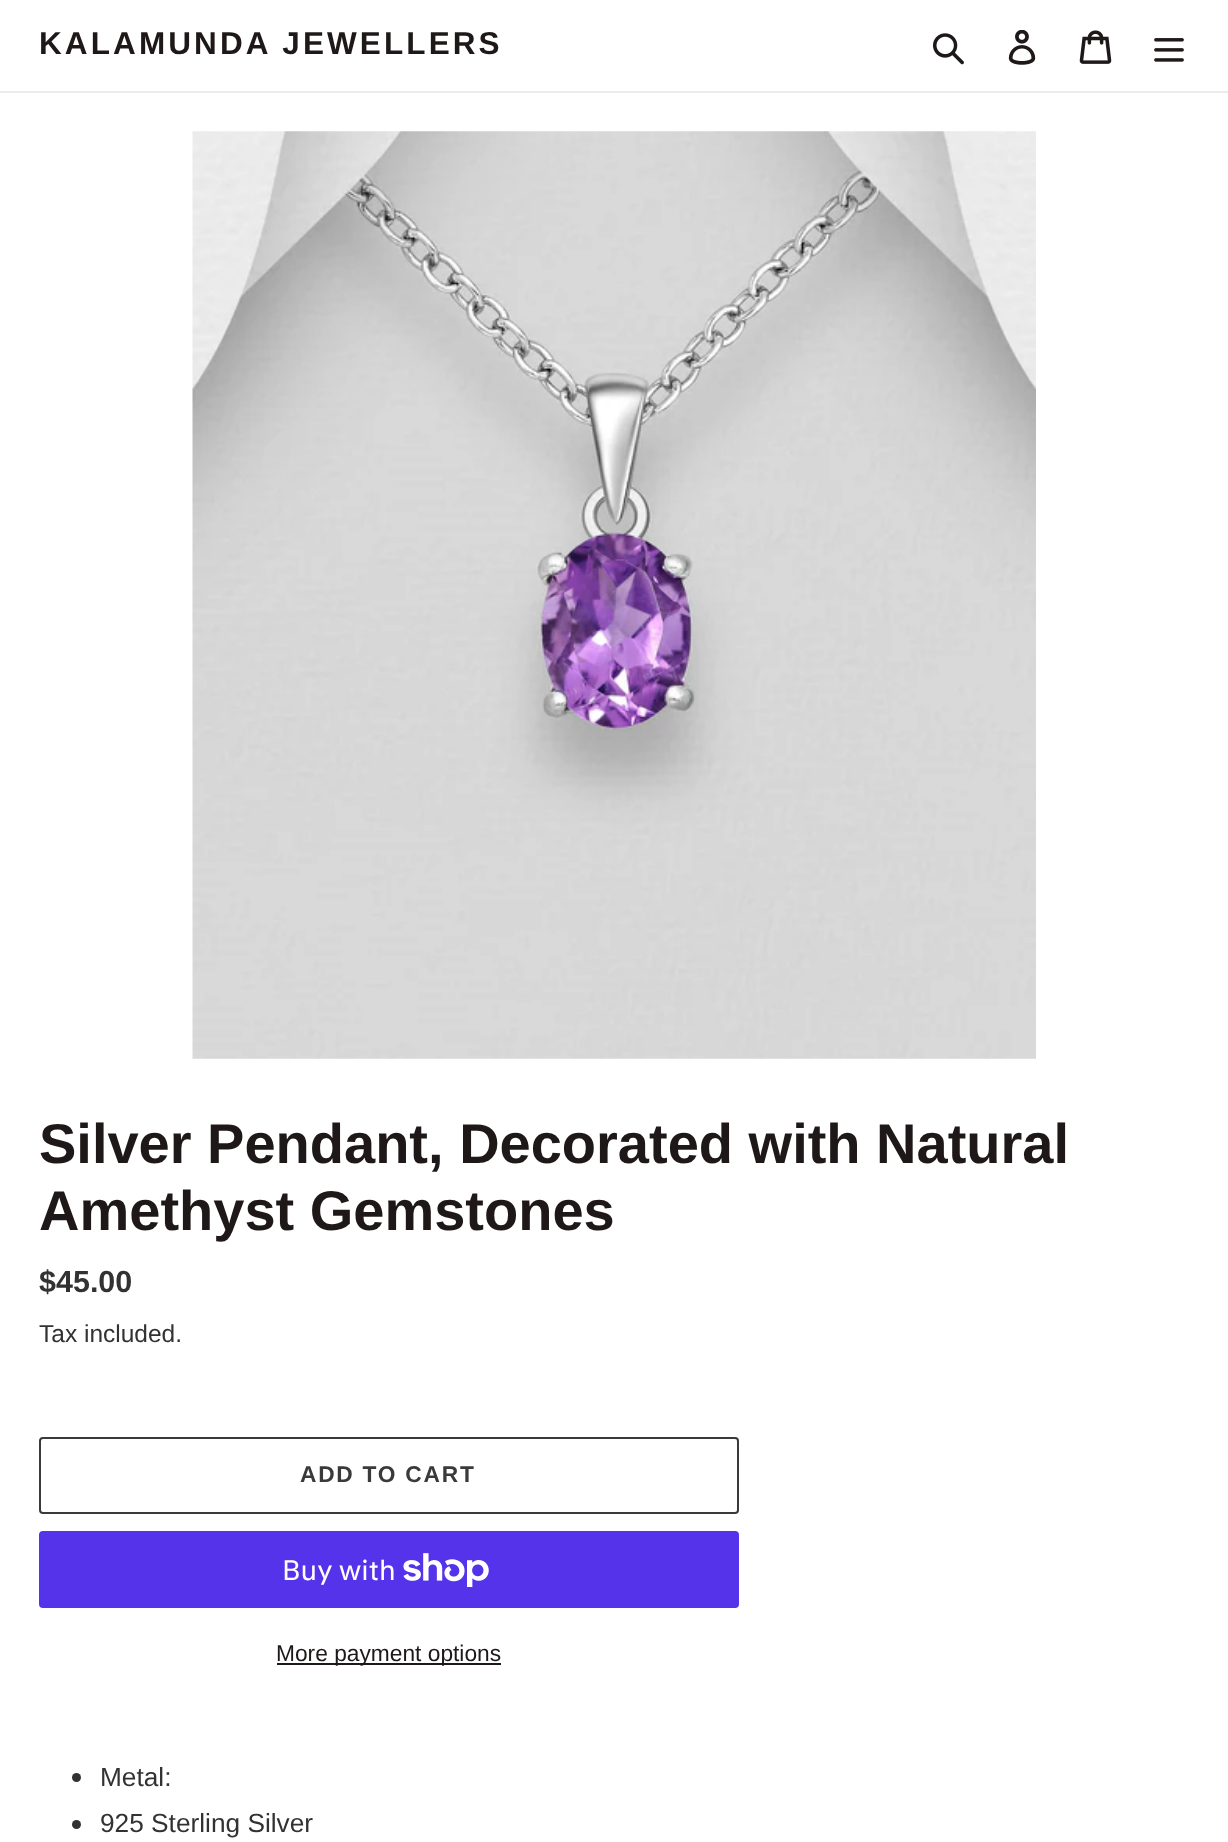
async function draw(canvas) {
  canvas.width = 1228
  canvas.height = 1842
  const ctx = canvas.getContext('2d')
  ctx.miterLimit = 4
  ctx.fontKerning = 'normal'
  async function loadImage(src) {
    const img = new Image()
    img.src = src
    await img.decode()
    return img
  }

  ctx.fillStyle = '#fff'
  ctx.fillRect(0, 0, 1228, 1842)
  ctx.fillStyle = '#ebebeb'
  ctx.fillRect(0, 91, 1228, 2)
  ctx.letterSpacing = '3.1px'
  ctx.font = 'bold 31.5px Liberation Sans'
  ctx.fillStyle = '#1f1818'
  ctx.fillText('KALAMUNDA JEWELLERS', 39, 54)
  ctx.drawImage(await loadImage('image0.png'), 933, 33, 31, 32)
  ctx.drawImage(await loadImage('image1.png'), 1008, 30, 28, 35)
  ctx.drawImage(await loadImage('image2.png'), 1079, 30, 33, 34)
  ctx.drawImage(await loadImage('image3.png'), 1154, 38, 30, 24)
  ctx.drawImage(await loadImage('image4.png'), 192, 131, 844, 928)
  ctx.letterSpacing = '0px'
  ctx.font = 'bold 56px Liberation Sans'
  ctx.fillText('Silver Pendant, Decorated with Natural', 39, 1163)
  ctx.fillText('Amethyst Gemstones', 39, 1230)
  ctx.font = 'bold 30.5px Liberation Sans'
  ctx.fillStyle = '#333232'
  ctx.fillText('$45.00', 39, 1292)
  ctx.font = '24.5px Liberation Sans'
  ctx.fillText('Tax included.', 39, 1342)
  ctx.beginPath()
  ctx.roundRect(40, 1438, 698, 75, 3)
  ctx.strokeStyle = '#3a3a3a'
  ctx.lineWidth = 2
  ctx.stroke()
  ctx.letterSpacing = '1.75px'
  ctx.font = 'bold 22.75px Liberation Sans'
  ctx.fillStyle = '#3a3a3a'
  ctx.fillText('ADD TO CART', 300, 1482)
  ctx.fillStyle = '#5433eb'
  ctx.beginPath()
  ctx.roundRect(39, 1531, 700, 77, 4)
  ctx.fill()
  ctx.letterSpacing = '0px'
  ctx.font = '28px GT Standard'
  ctx.fillStyle = '#fff'
  ctx.fillText('Buy with', 282, 1580)
  ctx.drawImage(await loadImage('image5.png'), 403, 1553, 86, 34)
  ctx.fillStyle = '#1f1818'
  ctx.fillRect(277, 1663, 224, 2)
  ctx.font = '22.75px Liberation Sans'
  ctx.fillText('More payment options', 276, 1661)
  ctx.fillStyle = '#333232'
  ctx.beginPath()
  ctx.arc(76.5, 1777.5, 4.5, 0, 2 * Math.PI)
  ctx.fill()
  ctx.font = '26.25px Liberation Sans'
  ctx.fillText('Metal:', 100, 1786)
  ctx.beginPath()
  ctx.arc(76.5, 1824.5, 4.5, 0, 2 * Math.PI)
  ctx.fill()
  ctx.fillText('925 Sterling Silver', 100, 1832)
}

draw(document.querySelector('canvas'))
